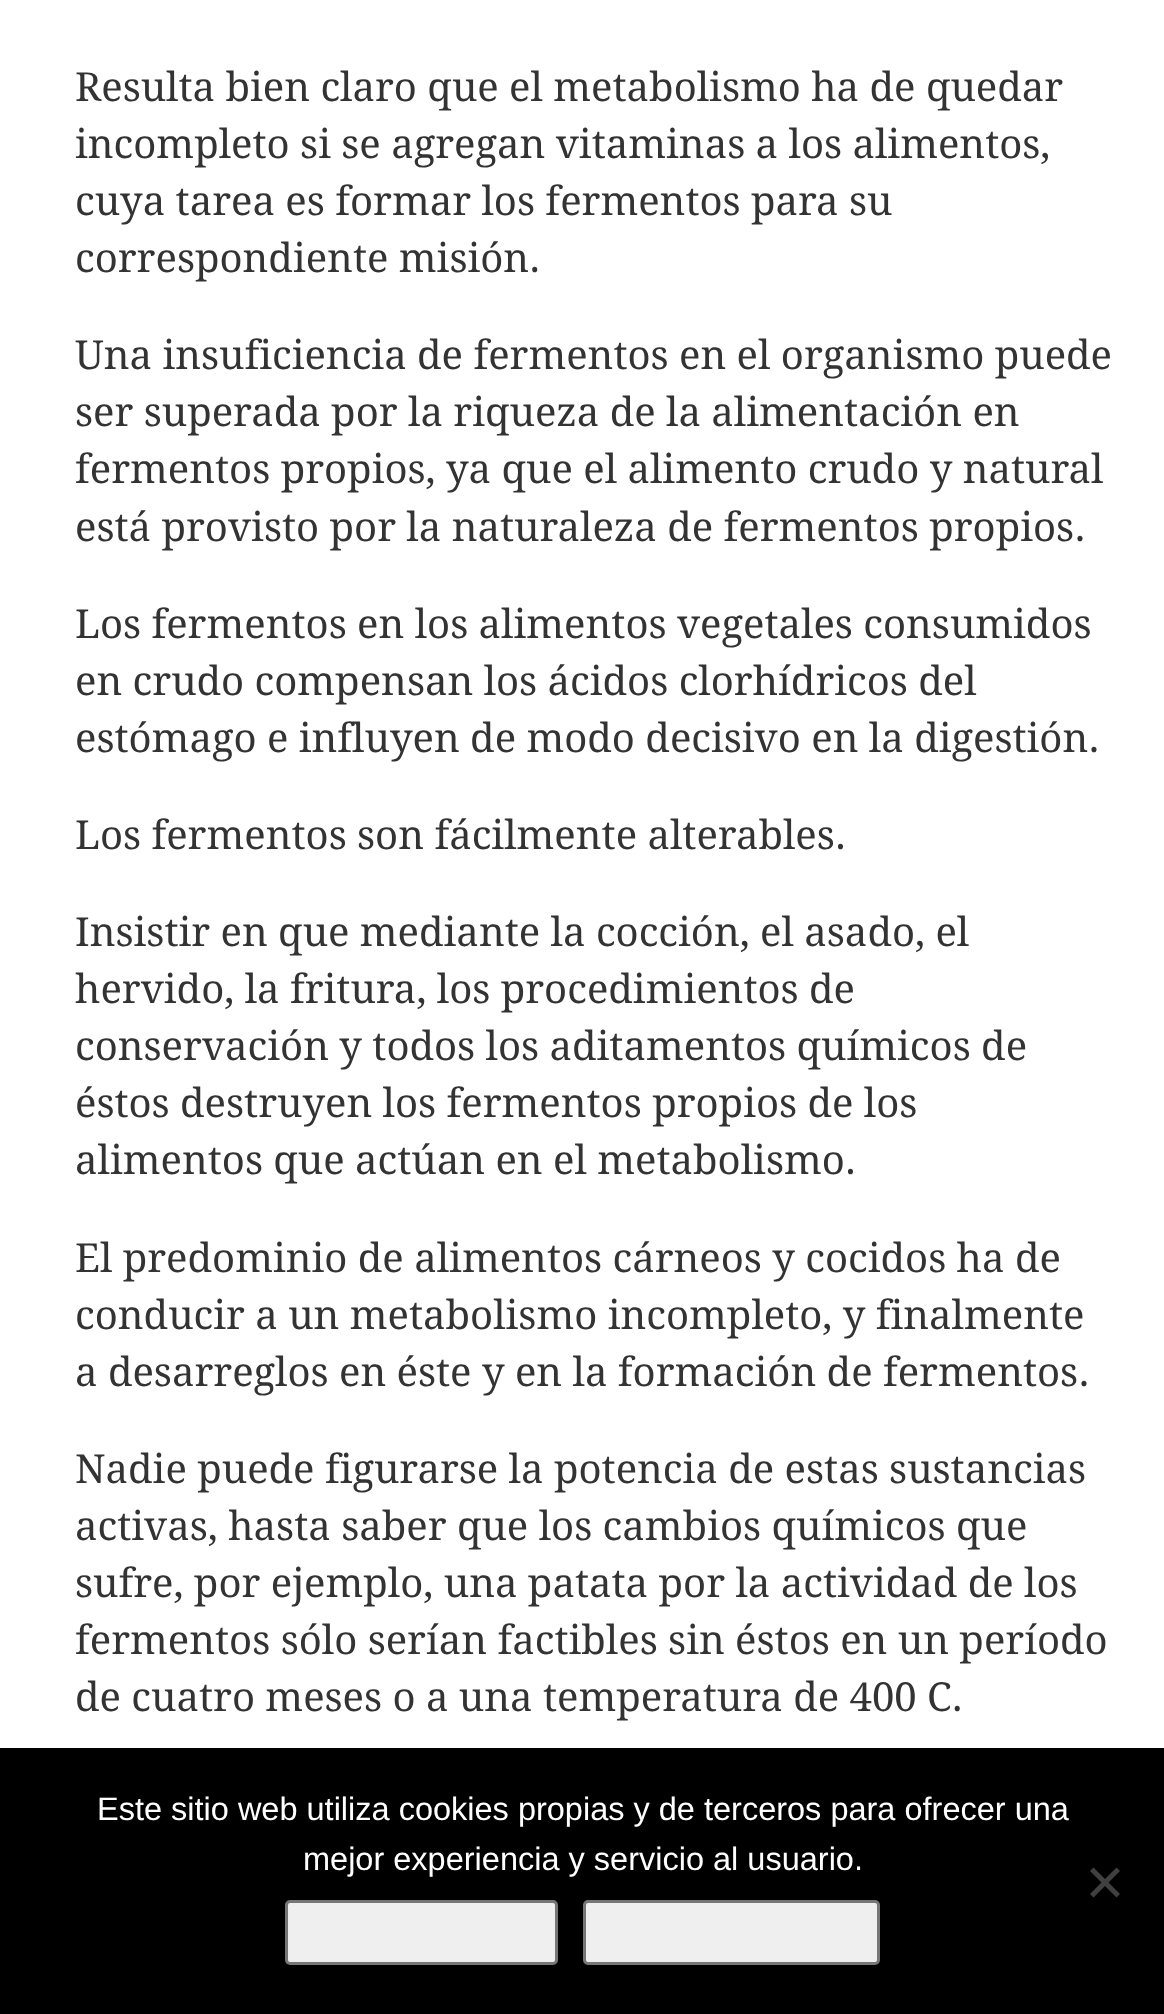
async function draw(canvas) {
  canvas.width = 1164
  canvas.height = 2014
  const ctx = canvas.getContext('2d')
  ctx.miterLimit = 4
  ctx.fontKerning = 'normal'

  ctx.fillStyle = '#fff'
  ctx.fillRect(0, 0, 1164, 2014)
  ctx.font = '40px Droid Serif'
  ctx.fillStyle = '#333'
  ctx.fillText('Resulta bien claro que el metabolismo ha de quedar', 75, 101)
  ctx.fillText('incompleto si se agregan vitaminas a los alimentos,', 75, 158)
  ctx.fillText('cuya tarea es formar los fermentos para su', 75, 215)
  ctx.fillText('correspondiente misión.', 75, 272)
  ctx.fillText('Una insuficiencia de fermentos en el organismo puede', 75, 369)
  ctx.fillText('ser superada por la riqueza de la alimentación en', 75, 426)
  ctx.fillText('fermentos propios, ya que el alimento crudo y natural', 75, 483)
  ctx.fillText('está provisto por la naturaleza de fermentos propios.', 75, 541)
  ctx.fillText('Los fermentos en los alimentos vegetales consumidos', 75, 638)
  ctx.fillText('en crudo compensan los ácidos clorhídricos del', 75, 695)
  ctx.fillText('estómago e influyen de modo decisivo en la digestión.', 75, 752)
  ctx.fillText('Los fermentos son fácilmente alterables.', 75, 849)
  ctx.fillText('Insistir en que mediante la cocción, el asado, el', 75, 946)
  ctx.fillText('hervido, la fritura, los procedimientos de', 75, 1003)
  ctx.fillText('conservación y todos los aditamentos químicos de', 75, 1060)
  ctx.fillText('éstos destruyen los fermentos propios de los', 75, 1117)
  ctx.fillText('alimentos que actúan en el metabolismo.', 75, 1174)
  ctx.fillText('El predominio de alimentos cárneos y cocidos ha de', 75, 1272)
  ctx.fillText('conducir a un metabolismo incompleto, y finalmente', 75, 1329)
  ctx.fillText('a desarreglos en éste y en la formación de fermentos.', 75, 1386)
  ctx.fillText('Nadie puede figurarse la potencia de estas sustancias', 75, 1483)
  ctx.fillText('activas, hasta saber que los cambios químicos que', 75, 1540)
  ctx.fillText('sufre, por ejemplo, una patata por la actividad de los', 75, 1597)
  ctx.fillText('fermentos sólo serían factibles sin éstos en un período', 75, 1654)
  ctx.fillText('de cuatro meses o a una temperatura de 400 C.', 75, 1711)
  ctx.fillStyle = '#000'
  ctx.fillRect(0, 1748, 1164, 266)
  ctx.font = '32.5px Liberation Sans'
  ctx.fillStyle = '#fff'
  ctx.fillText('Este sitio web utiliza cookies propias y de terceros para ofrecer una', 97, 1820)
  ctx.fillText('mejor experiencia y servicio al usuario.', 303, 1870)
  ctx.fillStyle = '#404040'
  ctx.beginPath()
  ctx.moveTo(1116.5, 1867.5)
  ctx.lineTo(1120, 1871)
  ctx.lineTo(1093.5, 1897.5)
  ctx.lineTo(1090, 1894)
  ctx.closePath()
  ctx.fill()
  ctx.beginPath()
  ctx.moveTo(1090, 1871)
  ctx.lineTo(1093.5, 1867.5)
  ctx.lineTo(1120, 1894)
  ctx.lineTo(1116.5, 1897.5)
  ctx.closePath()
  ctx.fill()
  ctx.fillStyle = '#efefef'
  ctx.beginPath()
  ctx.roundRect(286.5, 1901.5, 270, 62, 3.5)
  ctx.fill()
  ctx.strokeStyle = '#767676'
  ctx.lineWidth = 3
  ctx.stroke()
  ctx.beginPath()
  ctx.roundRect(584.5, 1901.5, 294, 62, 3.5)
  ctx.fill()
  ctx.stroke()
}

draw(document.querySelector('canvas'))
